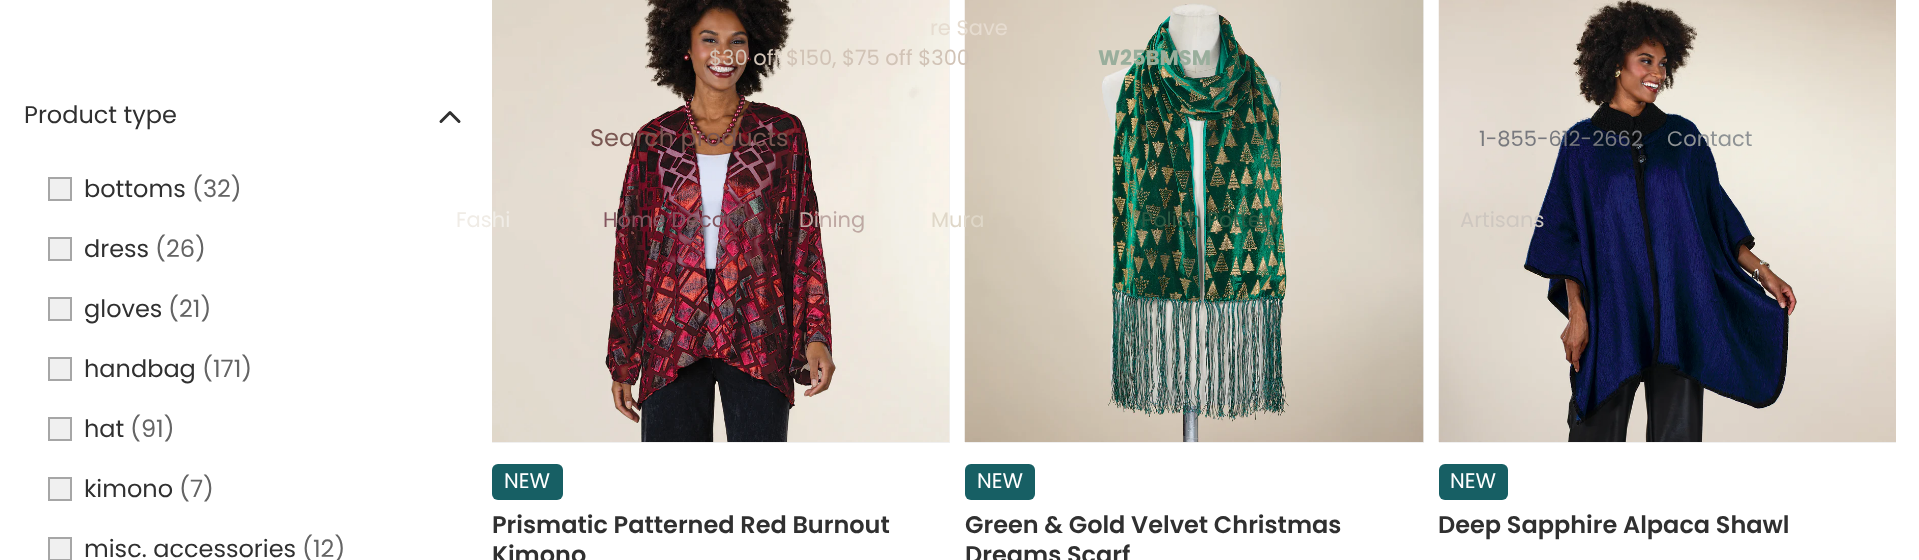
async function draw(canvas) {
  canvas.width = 1919
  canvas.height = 560
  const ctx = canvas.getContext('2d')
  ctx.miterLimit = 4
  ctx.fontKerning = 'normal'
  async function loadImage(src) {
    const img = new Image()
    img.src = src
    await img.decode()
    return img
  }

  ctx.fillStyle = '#fff'
  ctx.fillRect(0, 0, 1919, 560)
  ctx.fillStyle = '#f0f0f0'
  ctx.fillRect(492, 0, 458, 443)
  ctx.drawImage(await loadImage('image0.png'), 492, 0, 458, 442)
  ctx.fillRect(965, 0, 459, 443)
  ctx.drawImage(await loadImage('image1.png'), 964, 0, 460, 442)
  ctx.font = '21px Poppins'
  ctx.fillStyle = '#e6dcd0'
  ctx.fillText('re Save', 930, 35)
  ctx.fillStyle = '#d1c3b6'
  ctx.fillText('$30 off $150, $75 off $300', 709, 65)
  ctx.font = 'bold 21px Poppins'
  ctx.fillStyle = '#99ae9c'
  ctx.fillText('W25BMSM', 1098, 65)
  ctx.font = '24px Poppins'
  ctx.fillStyle = '#7a5752'
  ctx.fillText('Search products', 590, 146)
  ctx.drawImage(await loadImage('image2.png'), 1438, 0, 458, 442)
  ctx.font = '21px Poppins'
  ctx.fillStyle = '#78797e'
  ctx.fillText('1-855-612-2662', 1479, 146)
  ctx.fillStyle = '#8e9294'
  ctx.fillText('Contact', 1667, 146)
  ctx.fillStyle = '#f0ece6'
  ctx.fillText('Fashi', 456, 227)
  ctx.fillStyle = '#83555f'
  ctx.fillText('Home Decor', 603, 227)
  ctx.fillStyle = '#bea8a3'
  ctx.fillText('Dining', 799, 227)
  ctx.fillStyle = '#dfd7c8'
  ctx.fillText('Mura', 931, 227)
  ctx.fillStyle = '#2d5943'
  ctx.fillText('Polish Pottery', 1141, 227)
  ctx.fillStyle = '#cec7c0'
  ctx.fillText('Artisans', 1460, 227)
  ctx.font = '24px Poppins'
  ctx.fillStyle = '#303030'
  ctx.fillText('Product type', 24, 123)
  ctx.beginPath()
  ctx.moveTo(459, 121.5)
  ctx.lineTo(450, 112.5)
  ctx.lineTo(441, 121.5)
  ctx.strokeStyle = '#303030'
  ctx.lineWidth = 3
  ctx.lineCap = 'round'
  ctx.lineJoin = 'round'
  ctx.stroke()
  ctx.fillStyle = '#f0f0f0'
  ctx.beginPath()
  ctx.rect(49, 178, 22, 22)
  ctx.fill()
  ctx.strokeStyle = '#a6a6a6'
  ctx.lineWidth = 2
  ctx.lineJoin = 'miter'
  ctx.stroke()
  ctx.fillStyle = '#303030'
  ctx.fillText('bottoms', 84, 197)
  ctx.fillStyle = '#646464'
  ctx.fillText('(32)', 192, 197)
  ctx.fillStyle = '#f0f0f0'
  ctx.beginPath()
  ctx.rect(49, 238, 22, 22)
  ctx.fill()
  ctx.stroke()
  ctx.fillStyle = '#303030'
  ctx.fillText('dress', 84, 257)
  ctx.fillStyle = '#646464'
  ctx.fillText('(26)', 155, 257)
  ctx.fillStyle = '#f0f0f0'
  ctx.beginPath()
  ctx.rect(49, 298, 22, 22)
  ctx.fill()
  ctx.stroke()
  ctx.fillStyle = '#303030'
  ctx.fillText('gloves', 84, 317)
  ctx.fillStyle = '#646464'
  ctx.fillText('(21)', 168, 317)
  ctx.fillStyle = '#f0f0f0'
  ctx.beginPath()
  ctx.rect(49, 358, 22, 22)
  ctx.fill()
  ctx.stroke()
  ctx.fillStyle = '#303030'
  ctx.fillText('handbag', 84, 377)
  ctx.fillStyle = '#646464'
  ctx.fillText('(171)', 202, 377)
  ctx.fillStyle = '#f0f0f0'
  ctx.beginPath()
  ctx.rect(49, 418, 22, 22)
  ctx.fill()
  ctx.stroke()
  ctx.fillStyle = '#303030'
  ctx.fillText('hat', 84, 437)
  ctx.fillStyle = '#646464'
  ctx.fillText('(91)', 130, 437)
  ctx.fillStyle = '#f0f0f0'
  ctx.beginPath()
  ctx.rect(49, 478, 22, 22)
  ctx.fill()
  ctx.stroke()
  ctx.fillStyle = '#303030'
  ctx.fillText('kimono', 84, 497)
  ctx.fillStyle = '#646464'
  ctx.fillText('(7)', 179, 497)
  ctx.fillStyle = '#f0f0f0'
  ctx.beginPath()
  ctx.rect(49, 538, 22, 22)
  ctx.fill()
  ctx.stroke()
  ctx.fillStyle = '#303030'
  ctx.fillText('misc. accessories', 84, 557)
  ctx.fillStyle = '#646464'
  ctx.fillText('(12)', 302, 557)
  ctx.fillStyle = '#175f64'
  ctx.beginPath()
  ctx.roundRect(492, 464, 71, 36, 6)
  ctx.fill()
  ctx.font = '21px Poppins'
  ctx.fillStyle = '#fff'
  ctx.fillText('NEW', 504, 488)
  ctx.font = '600 24px Poppins'
  ctx.fillStyle = '#303030'
  ctx.fillText('Prismatic Patterned Red Burnout', 492, 533)
  ctx.fillText('Kimono', 492, 563)
  ctx.fillStyle = '#175f64'
  ctx.beginPath()
  ctx.roundRect(965, 464, 70, 36, 6)
  ctx.fill()
  ctx.font = '21px Poppins'
  ctx.fillStyle = '#fff'
  ctx.fillText('NEW', 977, 488)
  ctx.font = '600 24px Poppins'
  ctx.fillStyle = '#303030'
  ctx.fillText('Green & Gold Velvet Christmas', 965, 533)
  ctx.fillText('Dreams Scarf', 965, 563)
  ctx.fillStyle = '#f0f0f0'
  ctx.fillRect(1439, 442, 457, 1)
  ctx.fillStyle = '#175f64'
  ctx.beginPath()
  ctx.roundRect(1439, 464, 69, 36, 6)
  ctx.fill()
  ctx.font = '21px Poppins'
  ctx.fillStyle = '#fff'
  ctx.fillText('NEW', 1450, 488)
  ctx.font = '600 24px Poppins'
  ctx.fillStyle = '#303030'
  ctx.fillText('Deep Sapphire Alpaca Shawl', 1438, 533)
}

draw(document.querySelector('canvas'))
